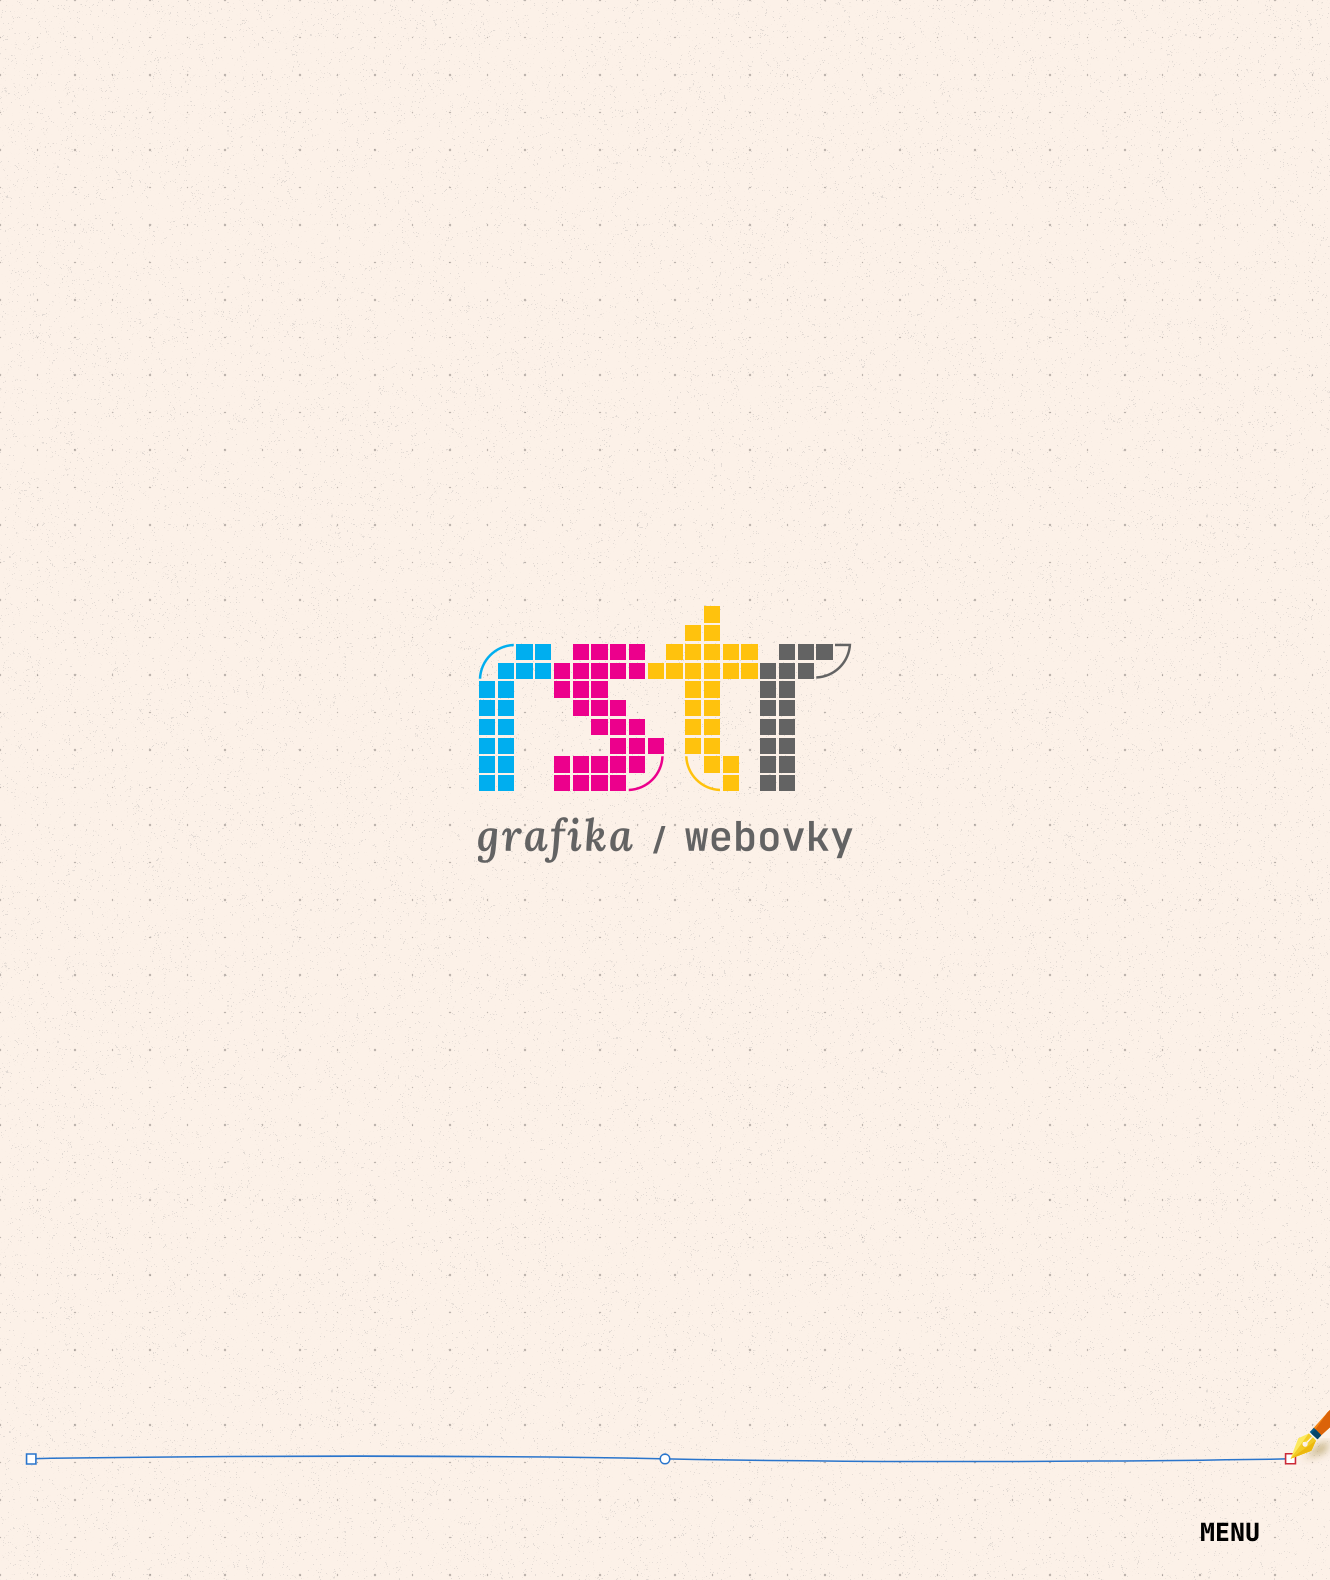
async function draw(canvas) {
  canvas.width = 1330
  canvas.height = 1580
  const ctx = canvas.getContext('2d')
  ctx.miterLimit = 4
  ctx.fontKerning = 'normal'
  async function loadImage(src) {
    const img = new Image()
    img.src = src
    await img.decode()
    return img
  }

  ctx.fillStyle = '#fff5ec'
  ctx.fillRect(0, 0, 1330, 1580)
  ctx.drawImage(await loadImage('image0.png'), 0, 0, 1330, 1580)
  ctx.drawImage(await loadImage('image1.png'), 0, 0, 1314, 1577)
  ctx.drawImage(await loadImage('image2.png'), 478, 606, 374, 186)
  ctx.drawImage(await loadImage('image3.png'), 478, 817, 155, 46)
  ctx.fillStyle = '#636363'
  ctx.beginPath()
  ctx.moveTo(653, 853.5)
  ctx.lineTo(661.5, 826)
  ctx.lineTo(665.5, 826)
  ctx.lineTo(657, 853.5)
  ctx.closePath()
  ctx.fill()
  ctx.drawImage(await loadImage('image4.png'), 685, 820, 168, 39)
  ctx.drawImage(await loadImage('image5.png'), 25, 1410, 1305, 55)
  ctx.font = '800 25px JetBrains Mono'
  ctx.fillStyle = '#000'
  ctx.fillText('MENU', 1200, 1541)
}

draw(document.querySelector('canvas'))
